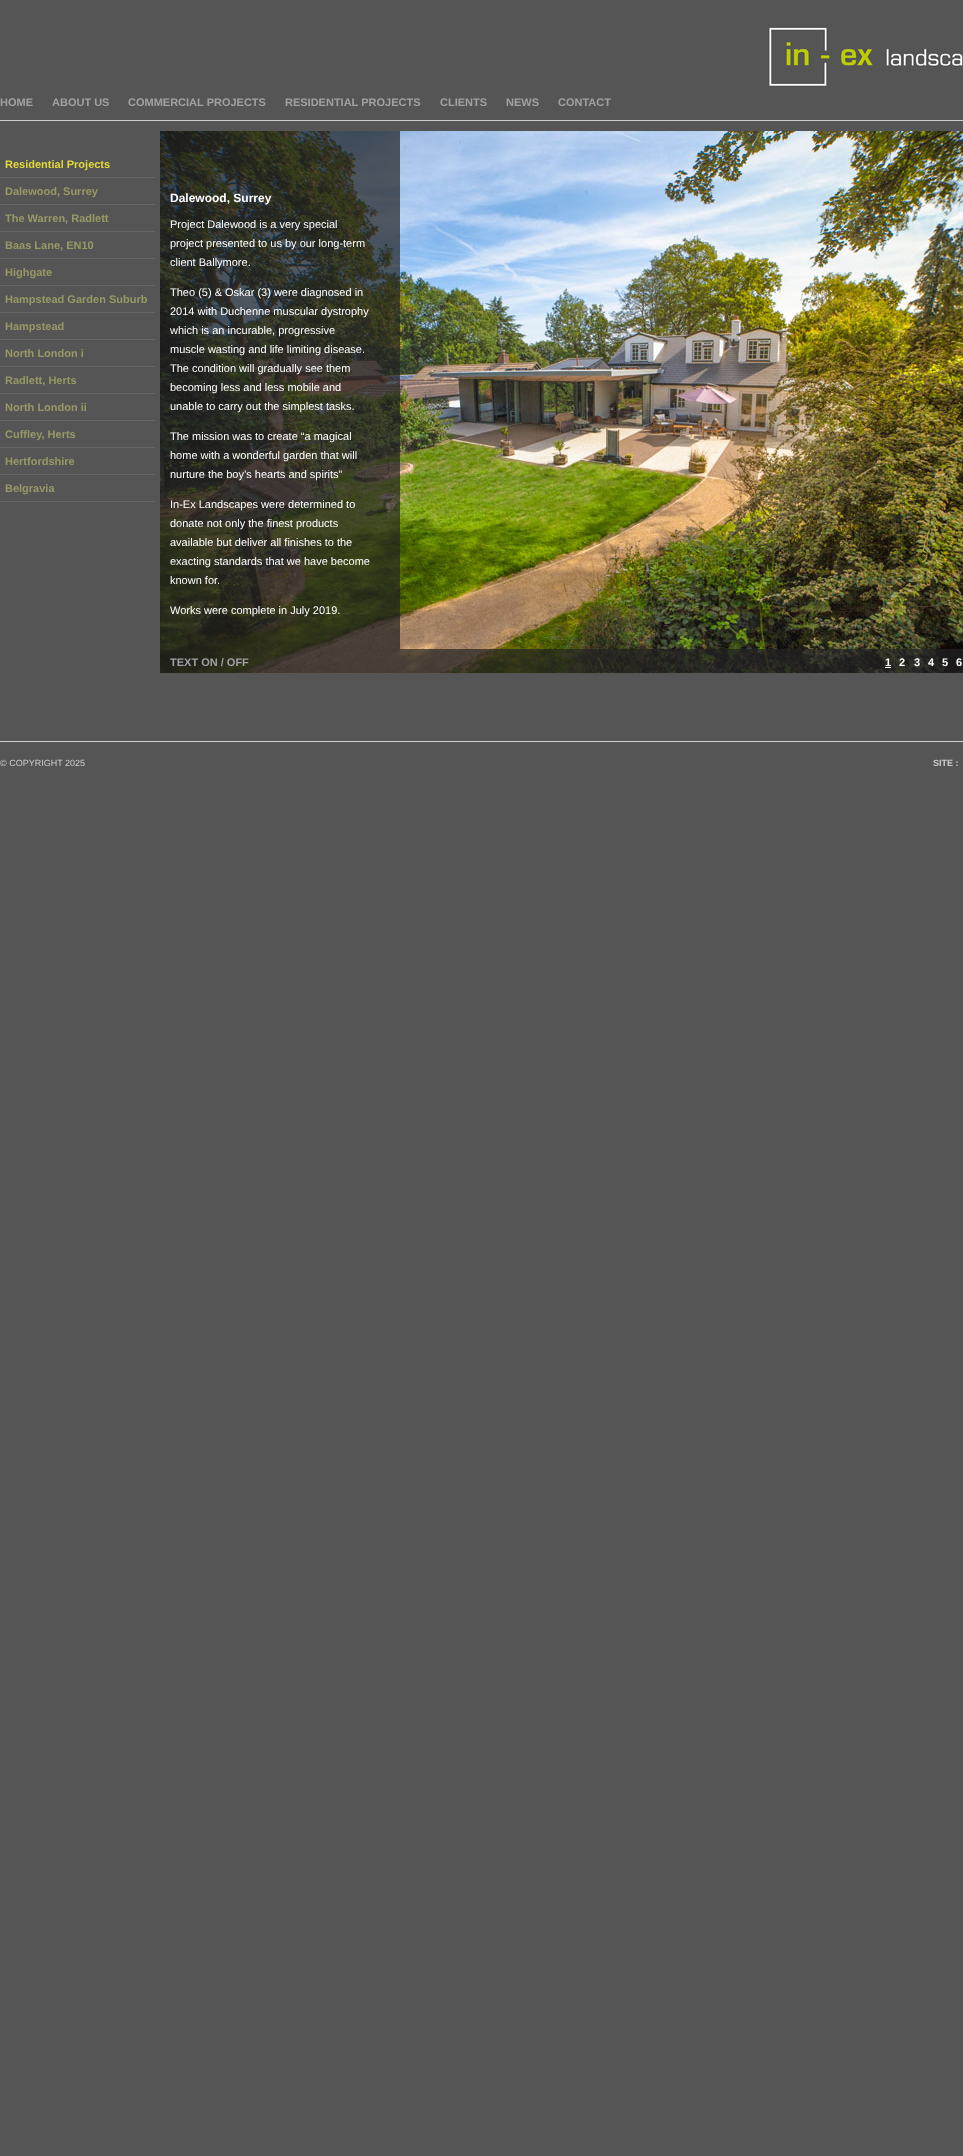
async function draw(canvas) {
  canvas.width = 963
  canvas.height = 2156
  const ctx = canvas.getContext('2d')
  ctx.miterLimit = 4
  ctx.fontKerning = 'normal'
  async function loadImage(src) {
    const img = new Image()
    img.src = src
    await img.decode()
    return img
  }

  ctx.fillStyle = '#555'
  ctx.fillRect(0, 0, 963, 2156)
  ctx.drawImage(await loadImage('image0.png'), 768, 26, 195, 61)
  ctx.fillStyle = '#ccc'
  ctx.fillRect(0, 120, 963, 1)
  ctx.font = 'bold 11px Liberation Sans'
  ctx.fillStyle = '#a0a1a3'
  ctx.fillText('HOME', 0, 106)
  ctx.fillText('ABOUT US', 52, 106)
  ctx.fillText('COMMERCIAL PROJECTS', 128, 106)
  ctx.fillText('RESIDENTIAL PROJECTS', 285, 106)
  ctx.fillText('CLIENTS', 440, 106)
  ctx.fillText('NEWS', 506, 106)
  ctx.fillText('CONTACT', 558, 106)
  ctx.fillStyle = '#666'
  ctx.fillRect(0, 177, 155, 1)
  ctx.fillStyle = '#e2d83b'
  ctx.fillText('Residential Projects', 5, 168)
  ctx.fillStyle = '#666'
  ctx.fillRect(0, 204, 155, 1)
  ctx.fillStyle = '#996'
  ctx.fillText('Dalewood, Surrey', 5, 195)
  ctx.fillStyle = '#666'
  ctx.fillRect(0, 231, 155, 1)
  ctx.fillStyle = '#996'
  ctx.fillText('The Warren, Radlett', 5, 222)
  ctx.fillStyle = '#666'
  ctx.fillRect(0, 258, 155, 1)
  ctx.fillStyle = '#996'
  ctx.fillText('Baas Lane, EN10', 5, 249)
  ctx.fillStyle = '#666'
  ctx.fillRect(0, 285, 155, 1)
  ctx.fillStyle = '#996'
  ctx.fillText('Highgate', 5, 276)
  ctx.fillStyle = '#666'
  ctx.fillRect(0, 312, 155, 1)
  ctx.fillStyle = '#996'
  ctx.fillText('Hampstead Garden Suburb', 5, 303)
  ctx.fillStyle = '#666'
  ctx.fillRect(0, 339, 155, 1)
  ctx.fillStyle = '#996'
  ctx.fillText('Hampstead', 5, 330)
  ctx.fillStyle = '#666'
  ctx.fillRect(0, 366, 155, 1)
  ctx.fillStyle = '#996'
  ctx.fillText('North London i', 5, 357)
  ctx.fillStyle = '#666'
  ctx.fillRect(0, 393, 155, 1)
  ctx.fillStyle = '#996'
  ctx.fillText('Radlett, Herts', 5, 384)
  ctx.fillStyle = '#666'
  ctx.fillRect(0, 420, 155, 1)
  ctx.fillStyle = '#996'
  ctx.fillText('North London ii', 5, 411)
  ctx.fillStyle = '#666'
  ctx.fillRect(0, 447, 155, 1)
  ctx.fillStyle = '#996'
  ctx.fillText('Cuffley, Herts', 5, 438)
  ctx.fillStyle = '#666'
  ctx.fillRect(0, 474, 155, 1)
  ctx.fillStyle = '#996'
  ctx.fillText('Hertfordshire', 5, 465)
  ctx.fillStyle = '#666'
  ctx.fillRect(0, 501, 155, 1)
  ctx.fillStyle = '#996'
  ctx.fillText('Belgravia', 5, 492)
  ctx.drawImage(await loadImage('image1.png'), 160, 131, 803, 542)
  ctx.fillStyle = '#222222b3'
  ctx.fillRect(160, 131, 240, 518)
  ctx.font = 'bold 12px Liberation Sans'
  ctx.fillStyle = '#fff'
  ctx.fillText('Dalewood, Surrey', 170, 202)
  ctx.font = '11px Liberation Sans'
  ctx.fillText('Project Dalewood is a very special', 170, 228)
  ctx.fillText('project presented to us by our long-term', 170, 247)
  ctx.fillText('client Ballymore.', 170, 266)
  ctx.fillText('Theo (5) & Oskar (3) were diagnosed in', 170, 296)
  ctx.fillText('2014 with Duchenne muscular dystrophy', 170, 315)
  ctx.fillText('which is an incurable, progressive', 170, 334)
  ctx.fillText('muscle wasting and life limiting disease.', 170, 353)
  ctx.fillText('The condition will gradually see them', 170, 372)
  ctx.fillText('becoming less and less mobile and', 170, 391)
  ctx.fillText('unable to carry out the simplest tasks.', 170, 410)
  ctx.fillText('The mission was to create “a magical', 170, 440)
  ctx.fillText('home with a wonderful garden that will', 170, 459)
  ctx.fillText('nurture the boy’s hearts and spirits”', 170, 478)
  ctx.fillText('In-Ex Landscapes were determined to', 170, 508)
  ctx.fillText('donate not only the finest products', 170, 527)
  ctx.fillText('available but deliver all finishes to the', 170, 546)
  ctx.fillText('exacting standards that we have become', 170, 565)
  ctx.fillText('known for.', 170, 584)
  ctx.fillText('Works were complete in July 2019.', 170, 614)
  ctx.fillStyle = '#222222b3'
  ctx.fillRect(160, 649, 110, 24)
  ctx.font = 'bold 11px Liberation Sans'
  ctx.fillStyle = '#a0a1a3'
  ctx.fillText('TEXT ON / OFF', 170, 666)
  ctx.fillStyle = '#222222b3'
  ctx.fillRect(270, 649, 693, 24)
  ctx.fillStyle = '#fff'
  ctx.fillText('1', 885, 666)
  ctx.fillRect(885, 667, 6, 1)
  ctx.fillText('2', 899, 666)
  ctx.fillText('3', 914, 666)
  ctx.fillText('4', 928, 666)
  ctx.fillText('5', 942, 666)
  ctx.fillText('6', 956, 666)
  ctx.fillStyle = '#ccc'
  ctx.fillRect(0, 741, 963, 1)
  ctx.font = '9px Liberation Sans'
  ctx.fillText('© COPYRIGHT 2025', 0, 766)
  ctx.font = 'bold 9px Liberation Sans'
  ctx.fillText('SITE :', 933, 766)
}

draw(document.querySelector('canvas'))
